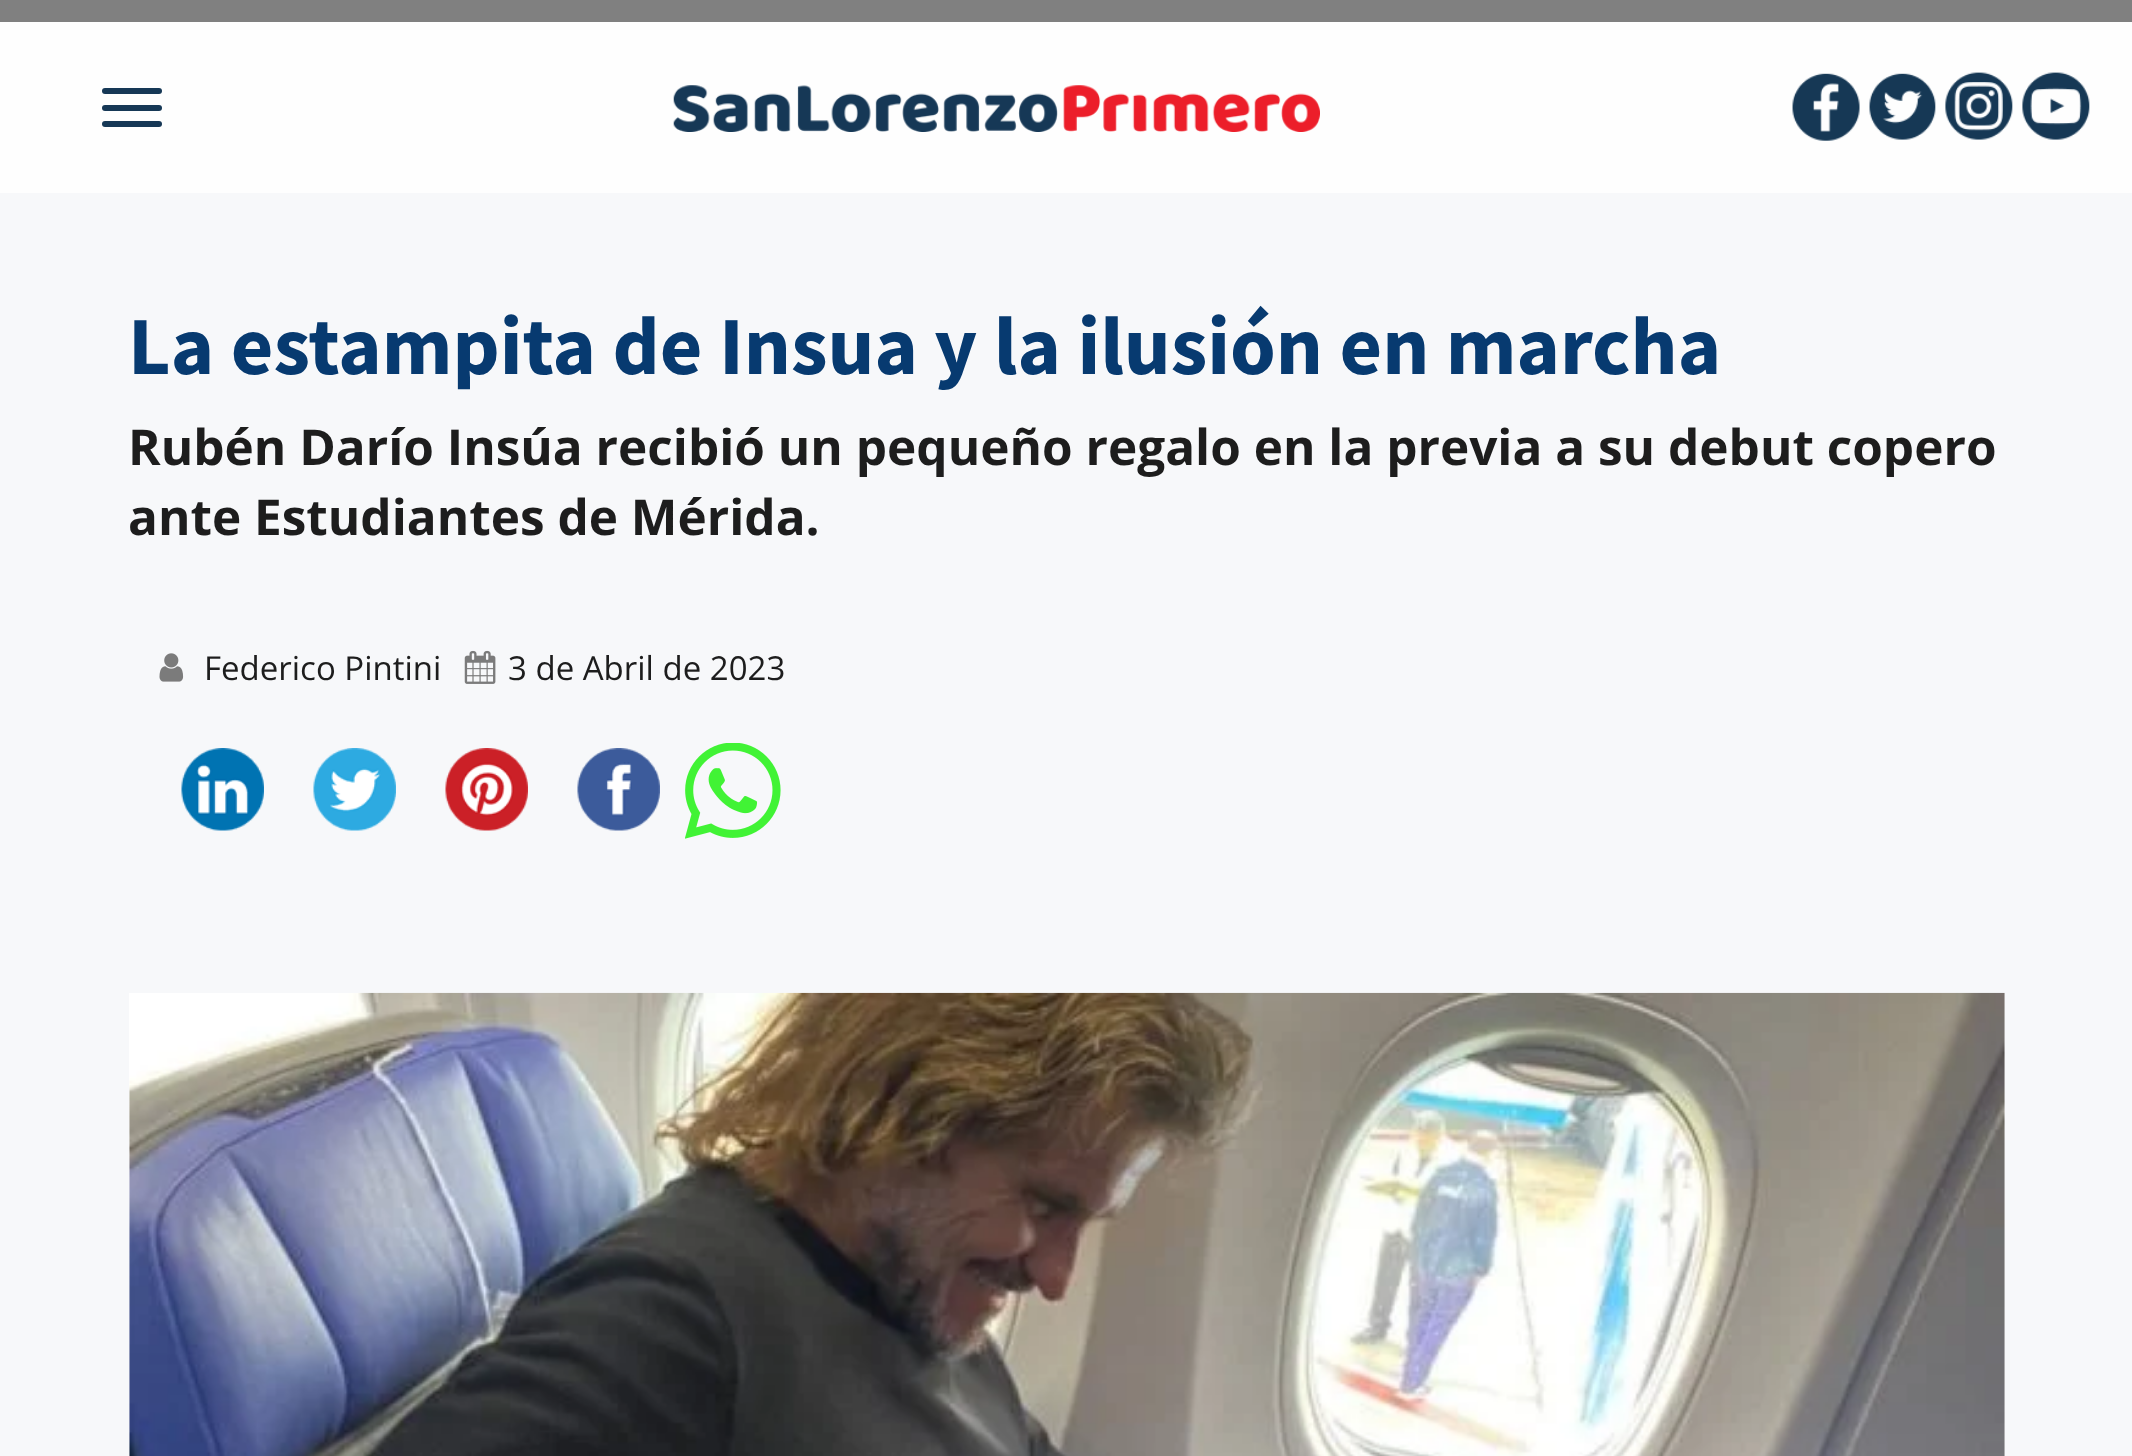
async function draw(canvas) {
  canvas.width = 2132
  canvas.height = 1456
  const ctx = canvas.getContext('2d')
  ctx.miterLimit = 4
  ctx.fontKerning = 'normal'
  async function loadImage(src) {
    const img = new Image()
    img.src = src
    await img.decode()
    return img
  }

  ctx.fillStyle = '#808080'
  ctx.fillRect(0, 0, 2132, 1456)
  ctx.fillStyle = '#f7f8fa'
  ctx.fillRect(0, 193, 2132, 1263)
  ctx.fillStyle = '#fefefe'
  ctx.fillRect(0, 22, 2132, 171)
  ctx.fillStyle = '#163856'
  ctx.beginPath()
  ctx.roundRect(102, 88, 60, 6, 3)
  ctx.fill()
  ctx.beginPath()
  ctx.roundRect(102, 105, 60, 6, 3)
  ctx.fill()
  ctx.beginPath()
  ctx.roundRect(102, 121, 60, 6, 3)
  ctx.fill()
  ctx.drawImage(await loadImage('image0.png'), 673, 85, 647, 47)
  ctx.drawImage(await loadImage('image1.png'), 1792, 73, 68, 68)
  ctx.drawImage(await loadImage('image2.png'), 1869, 73, 67, 67)
  ctx.drawImage(await loadImage('image3.png'), 1945, 72, 68, 68)
  ctx.drawImage(await loadImage('image4.png'), 2022, 72, 68, 68)
  ctx.font = 'bold 82.5px Source Sans Pro'
  ctx.fillStyle = '#073a70'
  ctx.fillText('La estampita de Insua y la ilusión en marcha', 128, 374)
  ctx.font = 'bold 49.5px Open Sans'
  ctx.fillStyle = '#1d1d1d'
  ctx.fillText('Rubén Darío Insúa recibió un pequeño regalo en la previa a su debut copero', 128, 465)
  ctx.fillText('ante Estudiantes de Mérida.', 128, 535)
  ctx.drawImage(await loadImage('image5.png'), 159, 653, 25, 29)
  ctx.font = '33px Open Sans'
  ctx.fillText('Federico Pintini', 204, 680)
  ctx.drawImage(await loadImage('image6.png'), 464, 650, 32, 34)
  ctx.fillText('3 de Abril de 2023', 508, 680)
  ctx.drawImage(await loadImage('image7.png'), 181, 748, 83, 83)
  ctx.drawImage(await loadImage('image8.png'), 313, 748, 83, 83)
  ctx.drawImage(await loadImage('image9.png'), 445, 748, 83, 83)
  ctx.drawImage(await loadImage('image10.png'), 577, 748, 83, 83)
  ctx.drawImage(await loadImage('image11.png'), 685, 743, 96, 96)
  ctx.fillStyle = '#fff'
  ctx.fillRect(129, 993, 1876, 463)
  ctx.drawImage(await loadImage('image12.png'), 129, 992, 1876, 464)
}

draw(document.querySelector('canvas'))
